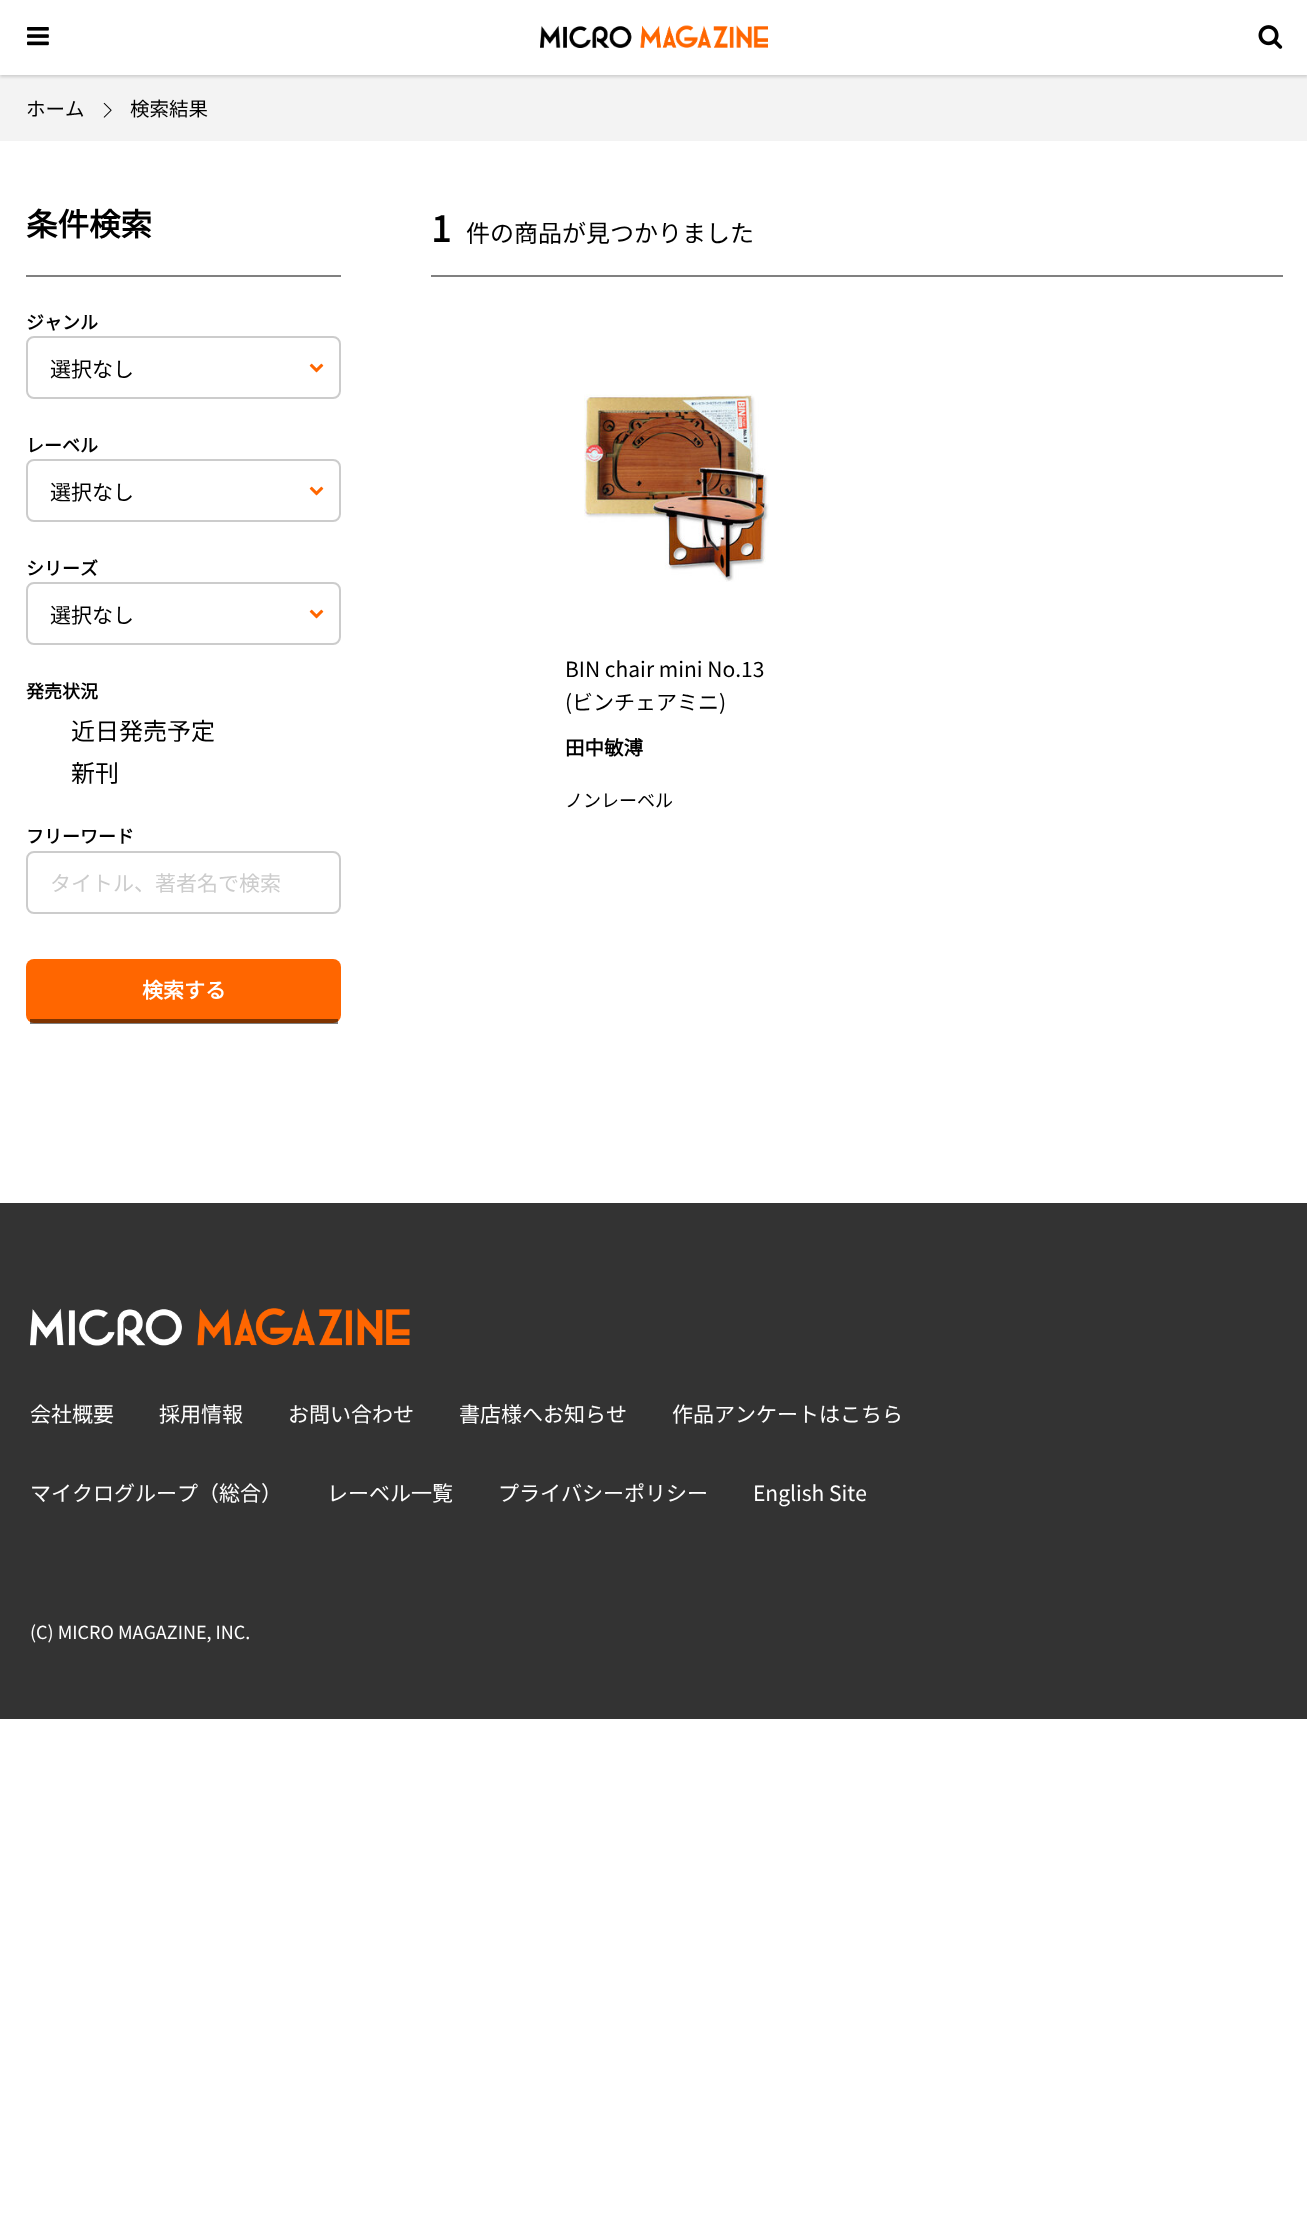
async function draw(canvas) {
  canvas.width = 1307
  canvas.height = 2228
  const ctx = canvas.getContext('2d')
  ctx.miterLimit = 4
  ctx.fontKerning = 'none'
  async function loadImage(src) {
    const img = new Image()
    img.src = src
    await img.decode()
    return img
  }

  ctx.fillStyle = '#fff'
  ctx.fillRect(0, 0, 1307, 2228)
  ctx.fillStyle = '#f3f3f3'
  ctx.fillRect(0, 75, 1307, 66)
  ctx.fillStyle = '#00000026'
  ctx.filter = 'blur(1.5px)'
  ctx.beginPath()
  ctx.rect(0, 2, 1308, 75)
  ctx.fill()
  ctx.filter = 'none'
  ctx.fillStyle = '#fff'
  ctx.fillRect(0, 0, 1307, 75)
  ctx.drawImage(await loadImage('image0.png'), 27, 27, 22, 19)
  ctx.drawImage(await loadImage('image1.png'), 540, 25, 228, 23)
  ctx.drawImage(await loadImage('image2.png'), 1258, 25, 25, 24)
  ctx.font = '100 19.5px Noto Sans JP'
  ctx.fillStyle = '#000'
  ctx.fillText('ホーム', 26, 116)
  ctx.drawImage(await loadImage('image3.png'), 103, 102, 9, 16)
  ctx.fillText('検索結果', 130, 116)
  ctx.fillStyle = '#808080'
  ctx.fillRect(26, 275, 315, 2)
  ctx.font = 'bold 31.5px Noto Sans JP'
  ctx.fillStyle = '#000'
  ctx.fillText('条件検索', 26, 236)
  ctx.font = 'bold 18px Noto Sans JP'
  ctx.fillText('ジャンル', 26, 329)
  ctx.drawImage(await loadImage('image4.png'), 309, 363, 15, 10)
  ctx.beginPath()
  ctx.roundRect(27, 337, 313, 61, 7)
  ctx.strokeStyle = '#ccc'
  ctx.lineWidth = 2
  ctx.stroke()
  ctx.font = '100 21px Noto Sans JP'
  ctx.fillText('選択なし', 50, 377)
  ctx.font = 'bold 18px Noto Sans JP'
  ctx.fillText('レーベル', 26, 452)
  ctx.drawImage(await loadImage('image4.png'), 309, 486, 15, 10)
  ctx.beginPath()
  ctx.roundRect(27, 460, 313, 61, 7)
  ctx.stroke()
  ctx.font = '100 21px Noto Sans JP'
  ctx.fillText('選択なし', 50, 500)
  ctx.font = 'bold 18px Noto Sans JP'
  ctx.fillText('シリーズ', 26, 575)
  ctx.drawImage(await loadImage('image4.png'), 309, 609, 15, 10)
  ctx.beginPath()
  ctx.roundRect(27, 583, 313, 61, 7)
  ctx.stroke()
  ctx.font = '100 21px Noto Sans JP'
  ctx.fillText('選択なし', 50, 623)
  ctx.font = 'bold 18px Noto Sans JP'
  ctx.fillText('発売状況', 26, 698)
  ctx.font = '100 24px Noto Sans JP'
  ctx.fillText('近日発売予定', 71, 740)
  ctx.fillText('新刊', 71, 782)
  ctx.font = 'bold 18px Noto Sans JP'
  ctx.fillText('フリーワード', 26, 843)
  ctx.beginPath()
  ctx.roundRect(27, 852, 313, 61, 7)
  ctx.stroke()
  ctx.font = '100 21px Noto Sans JP'
  ctx.fillStyle = '#ccc'
  ctx.fillText('タイトル、著者名で検索', 50, 891)
  ctx.fillStyle = '#f60'
  ctx.beginPath()
  ctx.roundRect(26, 959, 315, 64, 8)
  ctx.fill()
  ctx.fillStyle = '#00000080'
  ctx.fillRect(30, 1019, 308, 5)
  ctx.font = 'bold 21px Noto Sans JP'
  ctx.fillStyle = '#fff'
  ctx.fillText('検索する', 142, 998)
  ctx.fillStyle = '#808080'
  ctx.fillRect(431, 275, 852, 2)
  ctx.font = 'bold 36px Noto Sans JP'
  ctx.fillStyle = '#000'
  ctx.fillText('1', 431, 242)
  ctx.font = '100 24px Noto Sans JP'
  ctx.fillText('件の商品が見つかりました', 466, 242)
  ctx.drawImage(await loadImage('image5.png'), 584, 394, 185, 188)
  ctx.font = '100 21px Noto Sans JP'
  ctx.fillText('BIN chair mini No.13', 565, 677)
  ctx.fillText('(ビンチェアミニ)', 565, 710)
  ctx.font = 'bold 19.5px Noto Sans JP'
  ctx.fillText('田中敏溥', 565, 755)
  ctx.font = '100 18px Noto Sans JP'
  ctx.fillText('ノンレーベル', 565, 807)
  ctx.fillStyle = '#333'
  ctx.fillRect(0, 1203, 1307, 516)
  ctx.drawImage(await loadImage('image6.png'), 30, 1308, 380, 38)
  ctx.font = '100 21px Noto Sans JP'
  ctx.fillStyle = '#fff'
  ctx.fillText('会社概要', 30, 1422)
  ctx.fillText('採用情報', 159, 1422)
  ctx.fillText('お問い合わせ', 288, 1422)
  ctx.fillText('書店様へお知らせ', 459, 1422)
  ctx.fillText('作品アンケートはこちら', 672, 1422)
  ctx.fillText('マイクログループ（総合）', 30, 1501)
  ctx.fillText('レーベル一覧', 327, 1501)
  ctx.fillText('プライバシーポリシー', 498, 1501)
  ctx.fillText('English Site', 753, 1501)
  ctx.font = '100 18px Noto Sans JP'
  ctx.fillText('(C) MICRO MAGAZINE, INC.', 30, 1639)
}

draw(document.querySelector('canvas'))
